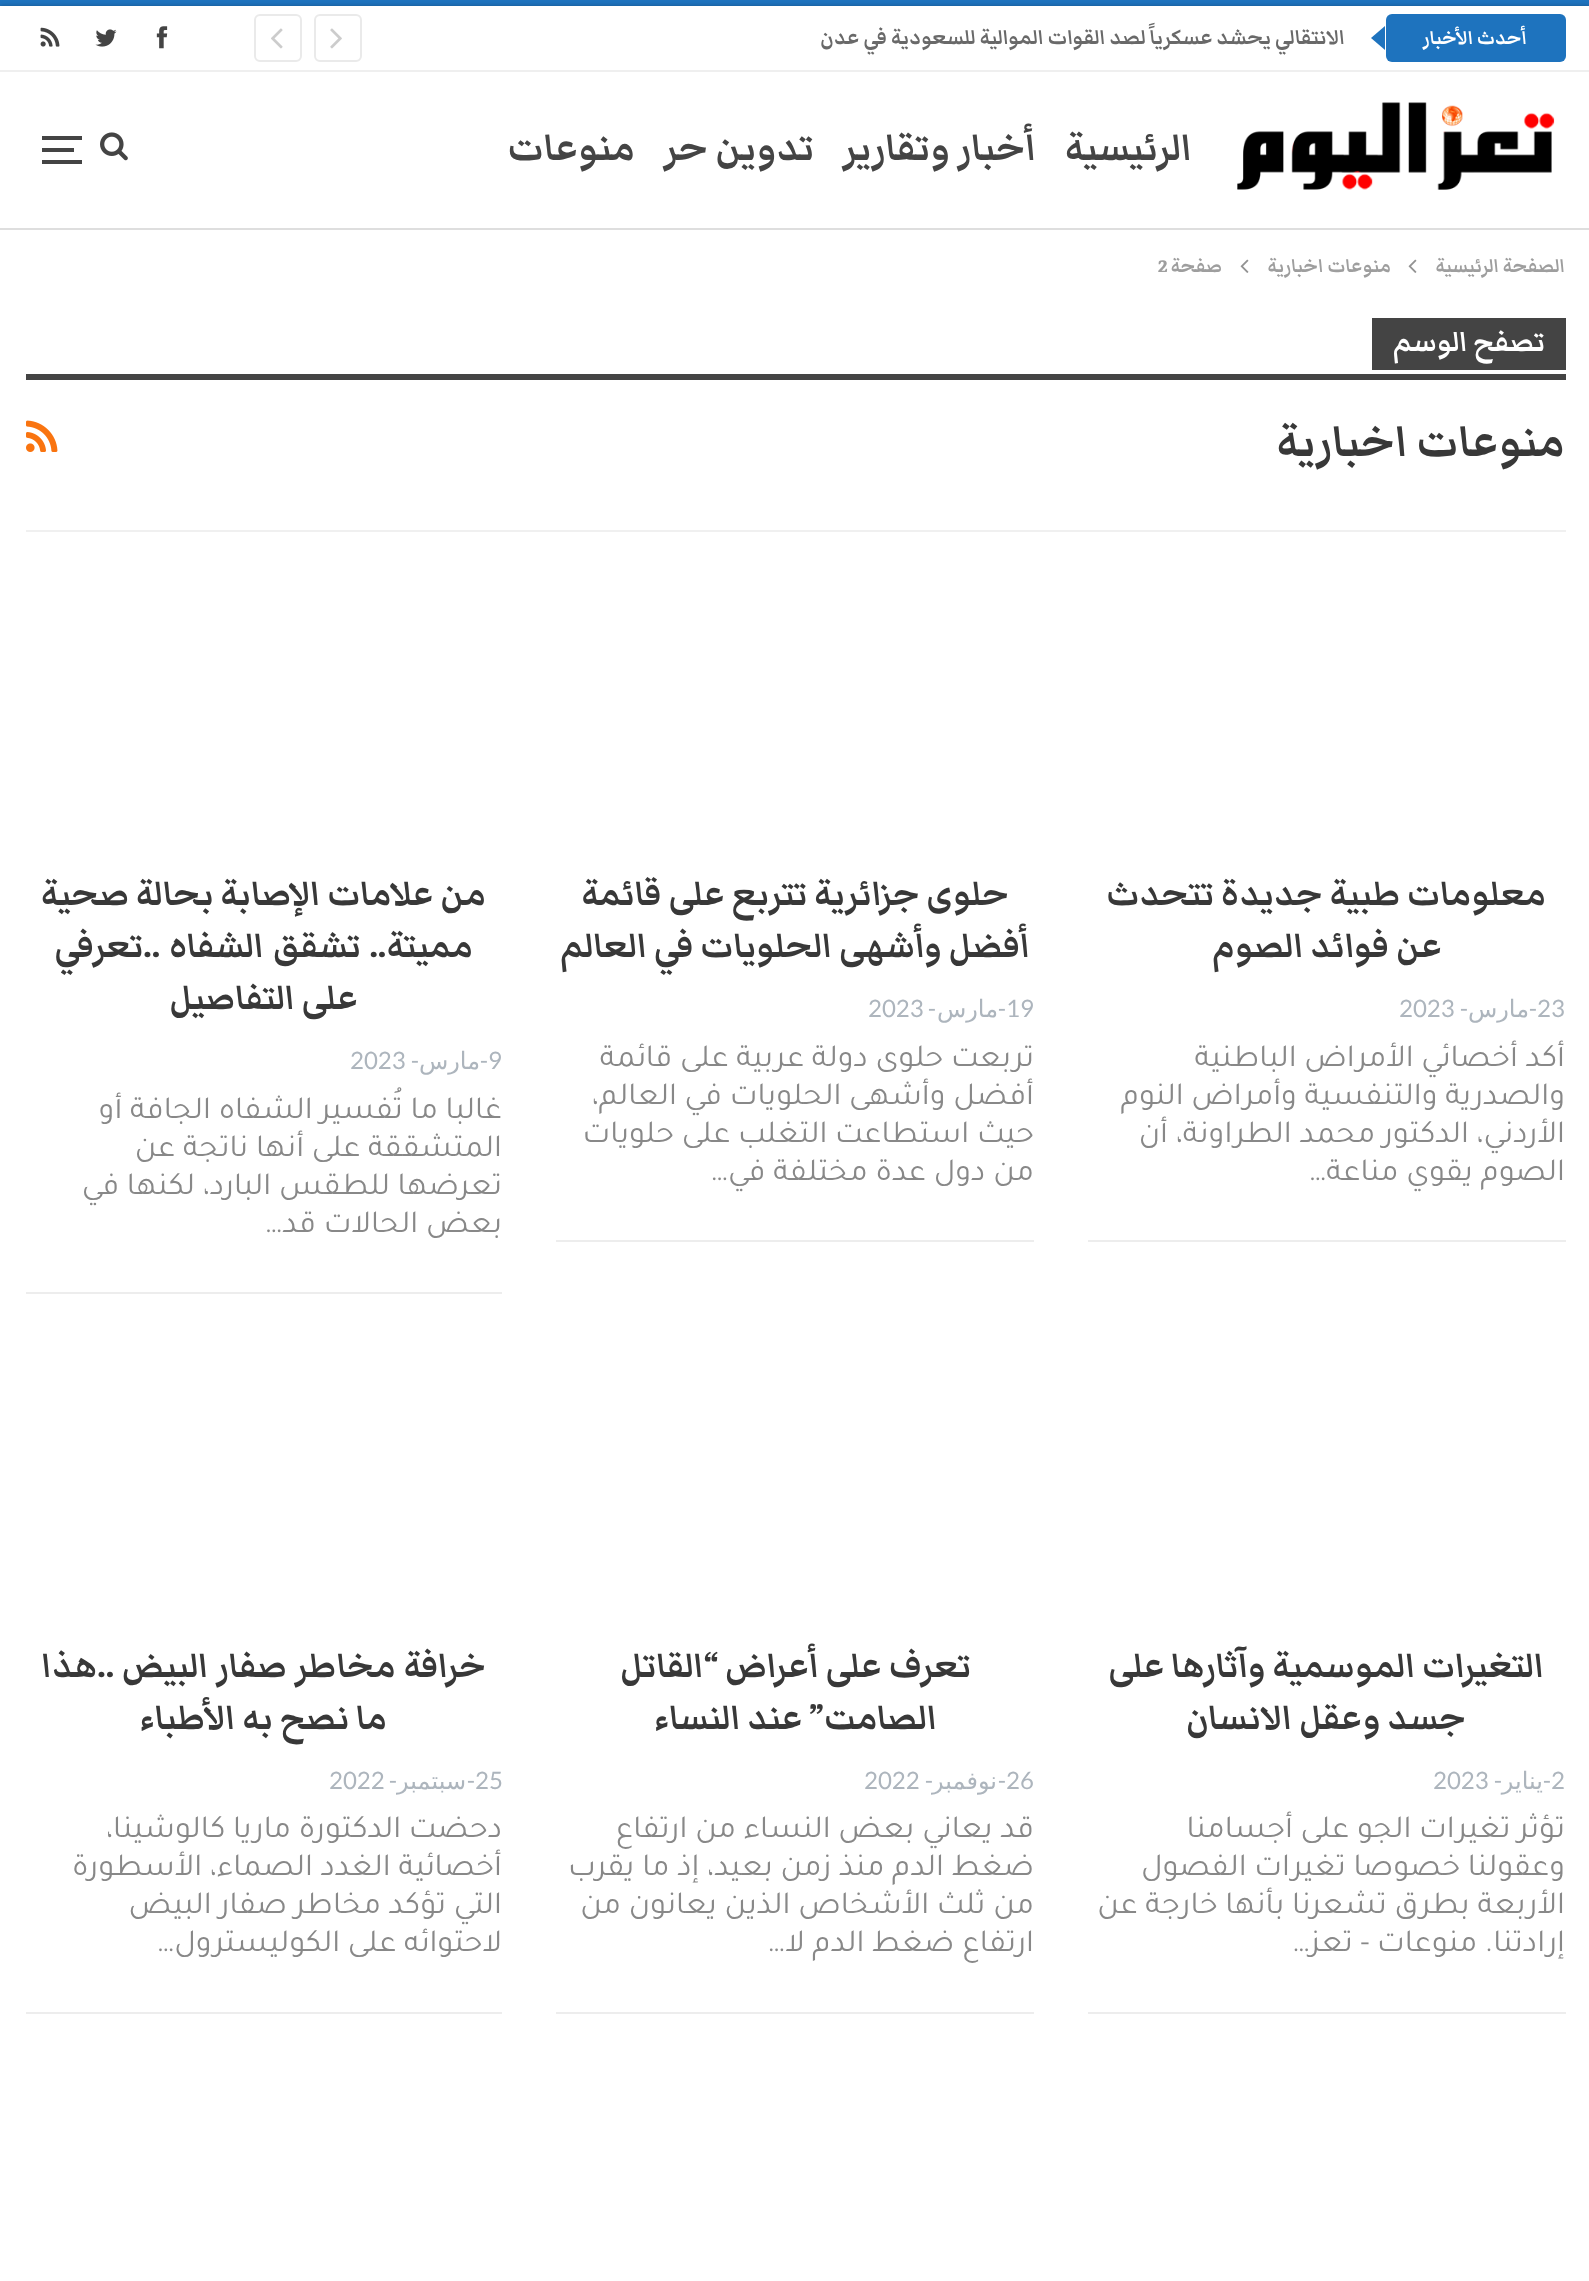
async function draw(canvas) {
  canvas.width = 1589
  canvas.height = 2281
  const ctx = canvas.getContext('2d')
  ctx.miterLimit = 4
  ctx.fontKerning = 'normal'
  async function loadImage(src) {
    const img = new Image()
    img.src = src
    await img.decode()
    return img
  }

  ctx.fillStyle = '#1e73be'
  ctx.fillRect(0, 0, 1589, 2281)
  ctx.fillStyle = '#00000045'
  ctx.filter = 'blur(2px)'
  ctx.beginPath()
  ctx.rect(0, 6, 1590, 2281)
  ctx.fill()
  ctx.filter = 'none'
  ctx.fillStyle = '#fff'
  ctx.fillRect(0, 6, 1589, 2275)
  ctx.fillStyle = '#dedede'
  ctx.fillRect(0, 228, 1589, 2)
  ctx.fillStyle = '#efefef'
  ctx.fillRect(0, 70, 1589, 2)
  ctx.fillStyle = '#1e73be'
  ctx.beginPath()
  ctx.roundRect(1386, 14, 180, 48, 6)
  ctx.fill()
  ctx.direction = 'rtl'
  ctx.font = 'bold 24px Markazi Text'
  ctx.fillStyle = '#fff'
  ctx.fillText('أحدث الأخبار', 1527, 44)
  ctx.fillStyle = '#1e73be'
  ctx.beginPath()
  ctx.moveTo(1385, 26)
  ctx.lineTo(1385, 50)
  ctx.lineTo(1371, 38)
  ctx.closePath()
  ctx.fill()
  ctx.font = 'bold 26px Markazi Text'
  ctx.fillStyle = '#696969'
  ctx.fillText('الانتقالي يحشد عسكرياً لصد القوات الموالية للسعودية في عدن', 1345, 44)
  ctx.beginPath()
  ctx.roundRect(315, 15, 46, 46, 5)
  ctx.strokeStyle = '#eaeaea'
  ctx.lineWidth = 2
  ctx.stroke()
  ctx.drawImage(await loadImage('image0.png'), 330, 28, 12, 21)
  ctx.beginPath()
  ctx.roundRect(255, 15, 46, 46, 5)
  ctx.stroke()
  ctx.drawImage(await loadImage('image1.png'), 271, 28, 12, 21)
  ctx.drawImage(await loadImage('image2.png'), 156, 26, 12, 23)
  ctx.drawImage(await loadImage('image3.png'), 95, 29, 22, 18)
  ctx.drawImage(await loadImage('image4.png'), 40, 27, 20, 20)
  ctx.drawImage(await loadImage('image5.png'), 1237, 102, 318, 88)
  ctx.font = 'bold 48px Markazi Text'
  ctx.fillStyle = '#444'
  ctx.fillText('الرئيسية', 1192, 160)
  ctx.fillText('أخبار وتقارير', 1036, 160)
  ctx.fillText('تدوين حر', 814, 160)
  ctx.fillText('منوعات', 635, 160)
  ctx.drawImage(await loadImage('image6.png'), 100, 132, 28, 29)
  ctx.fillRect(42, 148, 32, 4)
  ctx.fillRect(42, 136, 40, 4)
  ctx.fillRect(42, 160, 40, 4)
  ctx.font = 'bold 24px Markazi Text'
  ctx.fillStyle = '#9e9e9e'
  ctx.fillText('الصفحة الرئيسية', 1565, 272)
  ctx.drawImage(await loadImage('image7.png'), 1408, 259, 9, 14)
  ctx.fillText('منوعات اخبارية', 1391, 272)
  ctx.drawImage(await loadImage('image7.png'), 1240, 259, 9, 14)
  ctx.fillText('صفحة', 1222, 272)
  ctx.direction = 'ltr'
  ctx.fillText('2', 1158, 272)
  ctx.fillStyle = '#f0f0f0'
  ctx.fillRect(26, 530, 1540, 2)
  ctx.fillStyle = '#444'
  ctx.fillRect(1372, 318, 194, 52)
  ctx.direction = 'rtl'
  ctx.font = 'bold 36px Markazi Text'
  ctx.fillStyle = '#fff'
  ctx.fillText('تصفح الوسم', 1545, 351)
  ctx.fillStyle = '#444'
  ctx.fillRect(26, 374, 1540, 6)
  ctx.font = 'bold 56px Markazi Text'
  ctx.fillStyle = '#383838'
  ctx.fillText('منوعات اخبارية', 1565, 456)
  ctx.drawImage(await loadImage('image8.png'), 26, 420, 32, 32)
  ctx.font = 'bold 44px Markazi Text'
  ctx.fillText('معلومات طبية جديدة تتحدث', 1546, 905)
  ctx.fillText('عن فوائد الصوم', 1442, 957)
  ctx.direction = 'ltr'
  ctx.font = '24px Lato'
  ctx.fillStyle = '#adb5bd'
  ctx.fillText('23', 1537, 1017)
  ctx.direction = 'rtl'
  ctx.fillText('-', 1537, 1017)
  ctx.font = '24px DejaVu Sans'
  ctx.fillText('مارس', 1529, 1017)
  ctx.font = '24px Lato'
  ctx.fillText('-', 1468, 1017)
  ctx.direction = 'ltr'
  ctx.fillText('2023', 1399, 1017)
  ctx.fillStyle = '#ededed'
  ctx.fillRect(1088, 1240, 478, 2)
  ctx.direction = 'rtl'
  ctx.font = '32px Tajawal'
  ctx.fillStyle = '#888'
  ctx.fillText('أكد أخصائي الأمراض الباطنية', 1565, 1066)
  ctx.fillText('والصدرية والتنفسية وأمراض النوم', 1565, 1104)
  ctx.fillText('الأردني، الدكتور محمد الطراونة، أن', 1565, 1142)
  ctx.fillText('الصوم يقوي مناعة…', 1565, 1180)
  ctx.font = 'bold 44px Markazi Text'
  ctx.fillStyle = '#383838'
  ctx.fillText('حلوى جزائرية تتربع على قائمة', 1009, 905)
  ctx.fillText('أفضل وأشهى الحلويات في العالم', 1030, 957)
  ctx.direction = 'ltr'
  ctx.font = '24px Lato'
  ctx.fillStyle = '#adb5bd'
  ctx.fillText('19', 1006, 1017)
  ctx.direction = 'rtl'
  ctx.fillText('-', 1006, 1017)
  ctx.font = '24px DejaVu Sans'
  ctx.fillText('مارس', 998, 1017)
  ctx.font = '24px Lato'
  ctx.fillText('-', 936, 1017)
  ctx.direction = 'ltr'
  ctx.fillText('2023', 868, 1017)
  ctx.fillStyle = '#ededed'
  ctx.fillRect(556, 1240, 478, 2)
  ctx.direction = 'rtl'
  ctx.font = '32px Tajawal'
  ctx.fillStyle = '#888'
  ctx.fillText('تربعت حلوى دولة عربية على قائمة', 1034, 1066)
  ctx.fillText('أفضل وأشهى الحلويات في العالم،', 1034, 1104)
  ctx.fillText('حيث استطاعت التغلب على حلويات', 1034, 1142)
  ctx.fillText('من دول عدة مختلفة في…', 1034, 1180)
  ctx.font = 'bold 44px Markazi Text'
  ctx.fillStyle = '#383838'
  ctx.fillText('من علامات الإصابة بحالة صحية', 486, 905)
  ctx.wordSpacing = '2px'
  ctx.fillText('مميتة.. تشقق الشفاه ..تعرفي', 473, 957)
  ctx.wordSpacing = '0px'
  ctx.fillText('على التفاصيل', 358, 1009)
  ctx.direction = 'ltr'
  ctx.font = '24px Lato'
  ctx.fillStyle = '#adb5bd'
  ctx.fillText('9', 488, 1069)
  ctx.direction = 'rtl'
  ctx.fillText('-', 488, 1069)
  ctx.font = '24px DejaVu Sans'
  ctx.fillText('مارس', 480, 1069)
  ctx.font = '24px Lato'
  ctx.fillText('-', 419, 1069)
  ctx.direction = 'ltr'
  ctx.fillText('2023', 350, 1069)
  ctx.fillStyle = '#ededed'
  ctx.fillRect(26, 1292, 476, 2)
  ctx.direction = 'rtl'
  ctx.font = '32px Tajawal'
  ctx.fillStyle = '#888'
  ctx.fillText('غالبا ما تُفسير الشفاه الجافة أو', 502, 1118)
  ctx.fillText('المتشققة على أنها ناتجة عن', 502, 1156)
  ctx.fillText('تعرضها للطقس البارد، لكنها في', 502, 1194)
  ctx.fillText('بعض الحالات قد…', 502, 1232)
  ctx.font = 'bold 44px Markazi Text'
  ctx.fillStyle = '#383838'
  ctx.fillText('التغيرات الموسمية وآثارها على', 1544, 1677)
  ctx.fillText('جسد وعقل الانسان', 1466, 1729)
  ctx.direction = 'ltr'
  ctx.font = '24px Lato'
  ctx.fillStyle = '#adb5bd'
  ctx.fillText('2', 1551, 1789)
  ctx.direction = 'rtl'
  ctx.fillText('-', 1551, 1789)
  ctx.fillText('-', 1502, 1789)
  ctx.font = '24px DejaVu Sans'
  ctx.fillText('يناير', 1543, 1789)
  ctx.direction = 'ltr'
  ctx.font = '24px Lato'
  ctx.fillText('2023', 1433, 1789)
  ctx.fillStyle = '#ededed'
  ctx.fillRect(1088, 2012, 478, 2)
  ctx.direction = 'rtl'
  ctx.font = '32px Tajawal'
  ctx.fillStyle = '#888'
  ctx.fillText('تؤثر تغيرات الجو على أجسامنا', 1565, 1837)
  ctx.fillText('وعقولنا خصوصا تغيرات الفصول', 1565, 1875)
  ctx.fillText('الأربعة بطرق تشعرنا بأنها خارجة عن', 1565, 1913)
  ctx.fillText('إرادتنا. منوعات - تعز…', 1565, 1951)
  ctx.font = 'bold 44px Markazi Text'
  ctx.fillStyle = '#383838'
  ctx.fillText('تعرف على أعراض “القاتل', 971, 1677)
  ctx.fillText('الصامت” عند النساء', 937, 1729)
  ctx.direction = 'ltr'
  ctx.font = '24px Lato'
  ctx.fillStyle = '#adb5bd'
  ctx.fillText('26', 1006, 1789)
  ctx.direction = 'rtl'
  ctx.fillText('-', 1006, 1789)
  ctx.fillText('-', 933, 1789)
  ctx.font = '24px DejaVu Sans'
  ctx.fillText('نوفمبر', 997, 1789)
  ctx.direction = 'ltr'
  ctx.font = '24px Lato'
  ctx.fillText('2022', 864, 1789)
  ctx.fillStyle = '#ededed'
  ctx.fillRect(556, 2012, 478, 2)
  ctx.direction = 'rtl'
  ctx.font = '32px Tajawal'
  ctx.fillStyle = '#888'
  ctx.fillText('قد يعاني بعض النساء من ارتفاع', 1034, 1837)
  ctx.fillText('ضغط الدم منذ زمن بعيد، إذ ما يقرب', 1034, 1875)
  ctx.fillText('من ثلث الأشخاص الذين يعانون من', 1034, 1913)
  ctx.fillText('ارتفاع ضغط الدم لا…', 1034, 1951)
  ctx.wordSpacing = '1px'
  ctx.font = 'bold 44px Markazi Text'
  ctx.fillStyle = '#383838'
  ctx.fillText('خرافة مخاطر صفار البيض ..هذا', 486, 1677)
  ctx.wordSpacing = '0px'
  ctx.fillText('ما نصح به الأطباء', 387, 1729)
  ctx.direction = 'ltr'
  ctx.font = '24px Lato'
  ctx.fillStyle = '#adb5bd'
  ctx.fillText('25', 475, 1789)
  ctx.direction = 'rtl'
  ctx.fillText('-', 475, 1789)
  ctx.fillText('-', 397, 1789)
  ctx.font = '24px DejaVu Sans'
  ctx.fillText('سبتمبر', 466, 1789)
  ctx.direction = 'ltr'
  ctx.font = '24px Lato'
  ctx.fillText('2022', 329, 1789)
  ctx.fillStyle = '#ededed'
  ctx.fillRect(26, 2012, 476, 2)
  ctx.direction = 'rtl'
  ctx.font = '32px Tajawal'
  ctx.fillStyle = '#888'
  ctx.fillText('دحضت الدكتورة ماريا كالوشينا،', 502, 1837)
  ctx.fillText('أخصائية الغدد الصماء، الأسطورة', 502, 1875)
  ctx.fillText('التي تؤكد مخاطر صفار البيض', 502, 1913)
  ctx.fillText('لاحتوائه على الكوليسترول…', 502, 1951)
}

draw(document.querySelector('canvas'))
